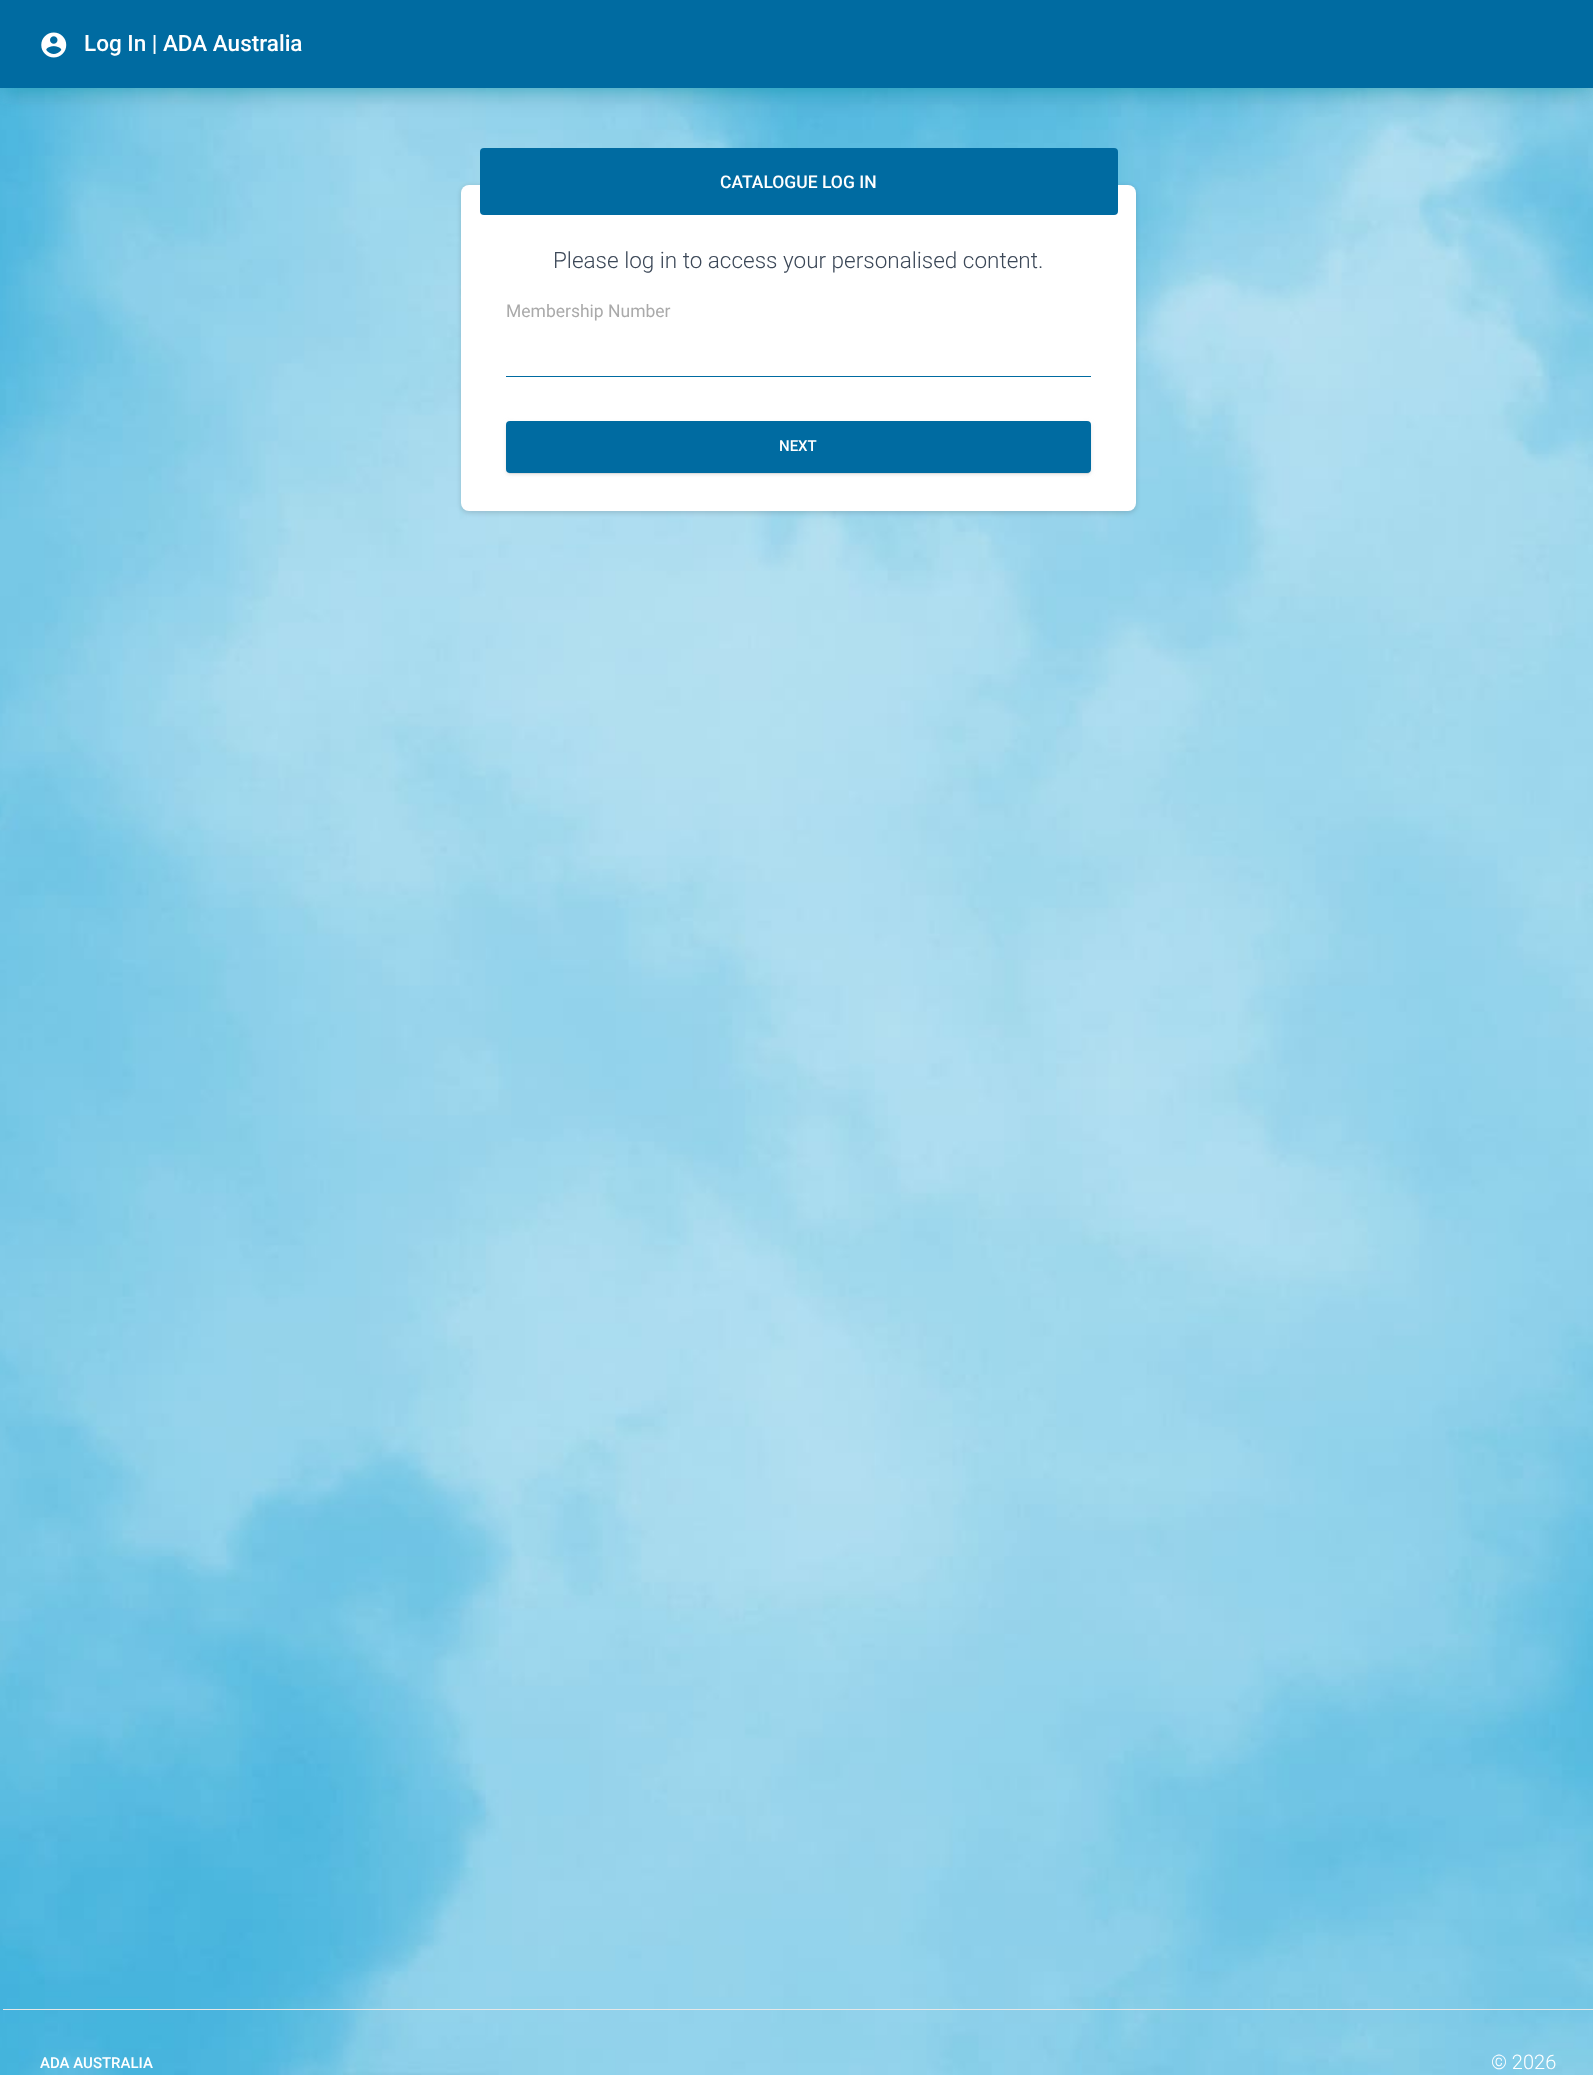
async function draw(canvas) {
  canvas.width = 1593
  canvas.height = 2075
  const ctx = canvas.getContext('2d')
  ctx.miterLimit = 4
  ctx.fontKerning = 'normal'
  async function loadImage(src) {
    const img = new Image()
    img.src = src
    await img.decode()
    return img
  }

  ctx.fillStyle = '#fff'
  ctx.fillRect(0, 0, 1593, 2075)
  ctx.drawImage(await loadImage('image0.png'), 0, 88, 1593, 1987)
  ctx.fillStyle = '#00bcd475'
  ctx.filter = 'blur(7.5px)'
  ctx.beginPath()
  ctx.rect(6, 15, 1582, 75)
  ctx.fill()
  ctx.filter = 'none'
  ctx.fillStyle = '#00000024'
  ctx.filter = 'blur(12.5px)'
  ctx.beginPath()
  ctx.rect(0, 5, 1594, 88)
  ctx.fill()
  ctx.filter = 'none'
  ctx.fillStyle = '#006ba1'
  ctx.fillRect(0, 0, 1593, 88)
  ctx.drawImage(await loadImage('image1.png'), 41, 32, 26, 26)
  ctx.font = '500 22.5px Roboto'
  ctx.fillStyle = '#fff'
  ctx.fillText('Log In | ADA Australia', 84, 51)
  ctx.fillStyle = '#00000024'
  ctx.filter = 'blur(2.5px)'
  ctx.beginPath()
  ctx.roundRect(461, 186, 675, 327, 8)
  ctx.fill()
  ctx.filter = 'none'
  ctx.fillStyle = '#fff'
  ctx.beginPath()
  ctx.roundRect(461, 185, 675, 326, 8)
  ctx.fill()
  ctx.fillStyle = '#006ba1'
  ctx.beginPath()
  ctx.roundRect(480, 148, 638, 67, 4)
  ctx.fill()
  ctx.font = '500 17.5px Roboto'
  ctx.fillStyle = '#fff'
  ctx.fillText('CATALOGUE LOG IN', 720, 188)
  ctx.font = '300 22.5px Roboto'
  ctx.fillStyle = '#3c4858'
  ctx.fillText('Please log in to access your personalised content.', 553, 268)
  ctx.font = '17.5px Roboto'
  ctx.fillStyle = '#aaa'
  ctx.fillText('Membership Number', 506, 317)
  ctx.fillStyle = '#006ba1'
  ctx.fillRect(506, 376, 585, 1)
  ctx.fillStyle = '#9999991f'
  ctx.filter = 'blur(3px)'
  ctx.beginPath()
  ctx.roundRect(506, 423, 585, 51, 4)
  ctx.fill()
  ctx.filter = 'none'
  ctx.fillStyle = '#99999933'
  ctx.filter = 'blur(0.5px)'
  ctx.beginPath()
  ctx.roundRect(509, 428, 580, 46, 1)
  ctx.fill()
  ctx.filter = 'none'
  ctx.fillStyle = '#99999924'
  ctx.filter = 'blur(1px)'
  ctx.beginPath()
  ctx.roundRect(506, 424, 585, 51, 4)
  ctx.fill()
  ctx.filter = 'none'
  ctx.fillStyle = '#006ba1'
  ctx.beginPath()
  ctx.roundRect(506, 421, 585, 52, 4)
  ctx.fill()
  ctx.font = '500 15px Roboto'
  ctx.fillStyle = '#fff'
  ctx.fillText('NEXT', 779, 451)
  ctx.fillStyle = '#e7e7e7'
  ctx.fillRect(3, 2009, 1590, 1)
  ctx.fillStyle = '#fff'
  ctx.fillText('ADA AUSTRALIA', 40, 2068)
  ctx.font = '300 20px Roboto'
  ctx.fillText('© 2026', 1491, 2069)
}

draw(document.querySelector('canvas'))
